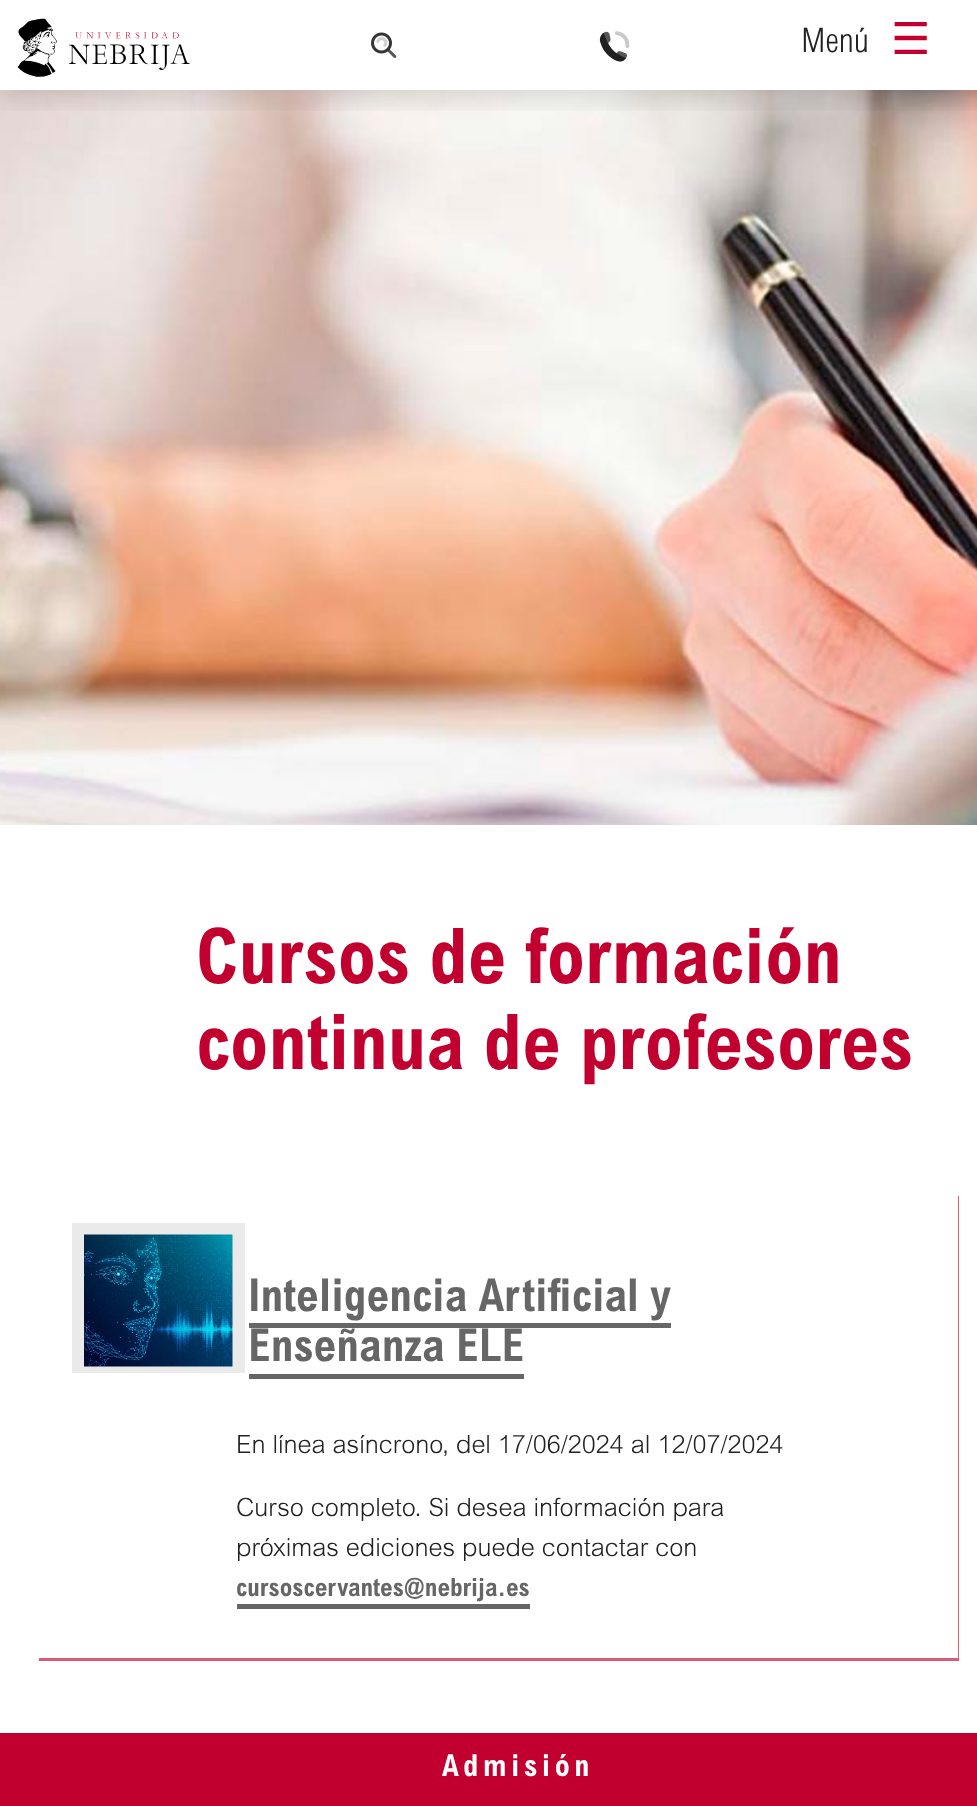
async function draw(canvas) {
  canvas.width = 977
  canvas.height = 1806
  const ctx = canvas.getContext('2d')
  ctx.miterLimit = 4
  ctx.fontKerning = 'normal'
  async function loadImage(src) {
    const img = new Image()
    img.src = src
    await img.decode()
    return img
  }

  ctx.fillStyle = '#fff'
  ctx.fillRect(0, 0, 977, 1806)
  ctx.drawImage(await loadImage('image3.png'), 0, 90, 977, 735)
  ctx.save()
  ctx.beginPath()
  ctx.rect(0, 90, 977, 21)
  ctx.clip()
  ctx.fillStyle = '#0000001c'
  ctx.filter = 'blur(11px)'
  ctx.beginPath()
  ctx.rect(0, 11, 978, 90)
  ctx.fill()
  ctx.filter = 'none'
  ctx.restore()
  ctx.font = '300 34px "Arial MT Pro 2"'
  ctx.fillStyle = '#222'
  ctx.fillText('Menú', 801, 52)
  ctx.font = '44px DejaVu Sans'
  ctx.fillStyle = '#c2002f'
  ctx.fillText('☰', 891, 54)
  ctx.drawImage(await loadImage('image0.png'), 17, 18, 173, 59)
  ctx.drawImage(await loadImage('image1.png'), 371, 32, 26, 26)
  ctx.drawImage(await loadImage('image2.png'), 599, 31, 31, 31)
  ctx.fillRect(0, 1733, 977, 73)
  ctx.letterSpacing = '4.5px'
  ctx.font = 'bold 30.25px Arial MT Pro'
  ctx.fillStyle = '#fff'
  ctx.fillText('Admisión', 442, 1776)
  ctx.letterSpacing = '0px'
  ctx.font = 'bold 76.75px Arial MT Pro'
  ctx.fillStyle = '#c2002f'
  ctx.fillText('Cursos de formación', 196, 983)
  ctx.fillText('continua de profesores', 196, 1069)
  ctx.fillStyle = '#d85c7a'
  ctx.beginPath()
  ctx.moveTo(39, 1658)
  ctx.lineTo(39, 1661)
  ctx.lineTo(959, 1661)
  ctx.lineTo(959, 1196)
  ctx.lineTo(958, 1196)
  ctx.lineTo(958, 1658)
  ctx.closePath()
  ctx.fill()
  ctx.fillStyle = '#eaeaea'
  ctx.fillRect(72, 1223, 173, 150)
  ctx.drawImage(await loadImage('image4.png'), 84, 1234, 149, 133)
  ctx.font = 'bold 45.4px Arial MT Pro'
  ctx.fillStyle = '#666'
  ctx.fillText('Inteligencia Artificial y', 248, 1311)
  ctx.fillText('Enseñanza ELE', 248, 1361)
  ctx.fillRect(249, 1323, 422, 5)
  ctx.fillRect(249, 1374, 275, 5)
  ctx.font = '300 25.2px Arial MT Pro'
  ctx.fillStyle = '#222'
  ctx.fillText('En línea asíncrono, del 17/06/2024 al 12/07/2024', 236, 1453)
  ctx.fillText('Curso completo. Si desea información para', 236, 1516)
  ctx.fillText('próximas ediciones puede contactar con', 236, 1556)
  ctx.font = 'bold 25.2px Arial MT Pro'
  ctx.fillStyle = '#666'
  ctx.fillText('cursoscervantes@nebrija.es', 236, 1596)
  ctx.fillRect(237, 1604, 293, 5)
}

draw(document.querySelector('canvas'))
